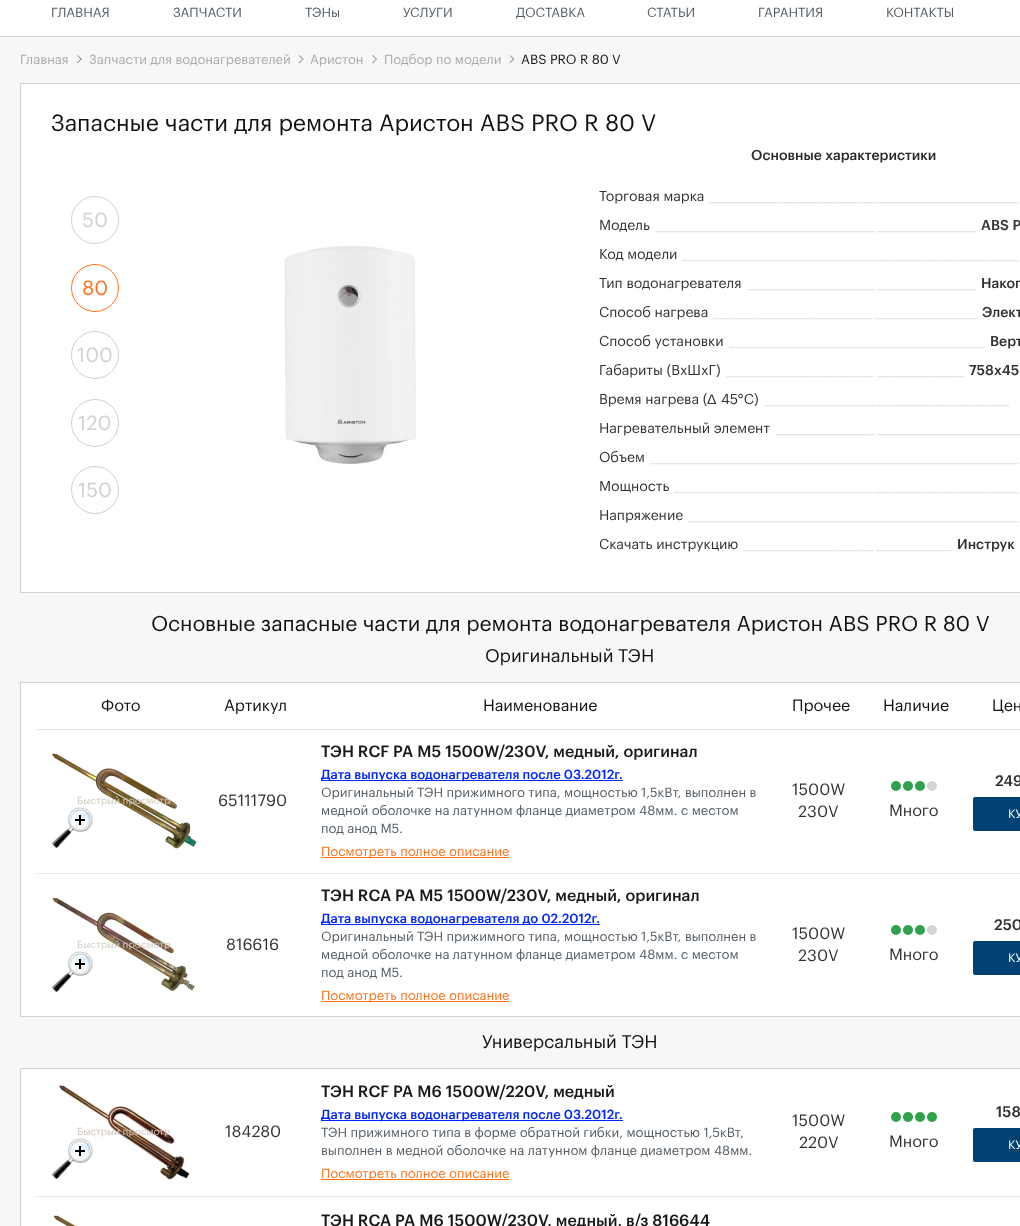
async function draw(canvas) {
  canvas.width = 1020
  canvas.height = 1226
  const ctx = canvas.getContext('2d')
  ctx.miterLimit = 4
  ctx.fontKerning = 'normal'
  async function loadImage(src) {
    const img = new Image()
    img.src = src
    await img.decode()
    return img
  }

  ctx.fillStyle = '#f7f7f7'
  ctx.fillRect(0, 0, 1020, 1226)
  ctx.fillStyle = '#fff'
  ctx.fillRect(0, 0, 1020, 36)
  ctx.fillStyle = '#d3d0c7'
  ctx.fillRect(0, 36, 1020, 1)
  ctx.font = '13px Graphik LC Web'
  ctx.fillStyle = '#535c64'
  ctx.fillText('ГЛАВНАЯ', 51, 17)
  ctx.fillText('ЗАПЧАСТИ', 173, 17)
  ctx.fillText('ТЭНы', 305, 17)
  ctx.fillText('УСЛУГИ', 403, 17)
  ctx.fillText('ДОСТАВКА', 516, 17)
  ctx.fillText('СТАТЬИ', 647, 17)
  ctx.fillText('ГАРАНТИЯ', 758, 17)
  ctx.fillText('КОНТАКТЫ', 886, 17)
  ctx.fillStyle = '#aaa'
  ctx.fillText('Главная', 20, 64)
  ctx.fillStyle = '#9e9e9e'
  ctx.beginPath()
  ctx.moveTo(77, 55.5)
  ctx.lineTo(77.5, 55)
  ctx.lineTo(82, 59)
  ctx.lineTo(81, 60)
  ctx.closePath()
  ctx.fill()
  ctx.beginPath()
  ctx.moveTo(77, 62.5)
  ctx.lineTo(81, 58.5)
  ctx.lineTo(82, 59)
  ctx.lineTo(77.5, 63.5)
  ctx.closePath()
  ctx.fill()
  ctx.fillStyle = '#aaa'
  ctx.fillText('Запчасти для водонагревателей', 89, 64)
  ctx.fillStyle = '#9e9e9e'
  ctx.beginPath()
  ctx.moveTo(298.5, 55.5)
  ctx.lineTo(299.5, 55)
  ctx.lineTo(303.5, 59)
  ctx.lineTo(303, 60)
  ctx.closePath()
  ctx.fill()
  ctx.beginPath()
  ctx.moveTo(298.5, 62.5)
  ctx.lineTo(303, 58.5)
  ctx.lineTo(303.5, 59)
  ctx.lineTo(299.5, 63.5)
  ctx.closePath()
  ctx.fill()
  ctx.fillStyle = '#aaa'
  ctx.fillText('Аристон', 310, 64)
  ctx.fillStyle = '#9e9e9e'
  ctx.beginPath()
  ctx.moveTo(372, 55.5)
  ctx.lineTo(373, 55)
  ctx.lineTo(377, 59)
  ctx.lineTo(376.5, 60)
  ctx.closePath()
  ctx.fill()
  ctx.beginPath()
  ctx.moveTo(372, 62.5)
  ctx.lineTo(376.5, 58.5)
  ctx.lineTo(377, 59)
  ctx.lineTo(373, 63.5)
  ctx.closePath()
  ctx.fill()
  ctx.fillStyle = '#aaa'
  ctx.fillText('Подбор по модели', 384, 64)
  ctx.fillStyle = '#9e9e9e'
  ctx.beginPath()
  ctx.moveTo(509.5, 55.5)
  ctx.lineTo(510, 55)
  ctx.lineTo(514.5, 59)
  ctx.lineTo(513.5, 60)
  ctx.closePath()
  ctx.fill()
  ctx.beginPath()
  ctx.moveTo(509.5, 62.5)
  ctx.lineTo(513.5, 58.5)
  ctx.lineTo(514.5, 59)
  ctx.lineTo(510, 63.5)
  ctx.closePath()
  ctx.fill()
  ctx.fillStyle = '#111'
  ctx.fillText('ABS PRO R 80 V', 521, 64)
  ctx.fillStyle = '#fff'
  ctx.beginPath()
  ctx.rect(20.5, 83.5, 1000, 509)
  ctx.fill()
  ctx.strokeStyle = '#d1d2cd'
  ctx.stroke()
  ctx.font = '23px Graphik LC Web'
  ctx.fillStyle = '#111'
  ctx.fillText('Запасные части для ремонта Аристон ABS PRO R 80 V', 51, 131)
  ctx.beginPath()
  ctx.arc(95, 220, 23.5, 0, 2 * Math.PI)
  ctx.stroke()
  ctx.font = '20px Graphik LC Web'
  ctx.fillStyle = '#d1d2cd'
  ctx.fillText('50', 82, 227)
  ctx.beginPath()
  ctx.arc(95, 288, 23.5, 0, 2 * Math.PI)
  ctx.strokeStyle = '#ff7118'
  ctx.stroke()
  ctx.fillStyle = '#ff7118'
  ctx.fillText('80', 82, 295)
  ctx.beginPath()
  ctx.arc(95, 355, 23.5, 0, 2 * Math.PI)
  ctx.strokeStyle = '#d1d2cd'
  ctx.stroke()
  ctx.fillStyle = '#d1d2cd'
  ctx.fillText('100', 77, 362)
  ctx.beginPath()
  ctx.arc(95, 423, 23.5, 0, 2 * Math.PI)
  ctx.stroke()
  ctx.fillText('120', 78, 430)
  ctx.beginPath()
  ctx.arc(95, 490, 23.5, 0, 2 * Math.PI)
  ctx.stroke()
  ctx.fillText('150', 78, 497)
  ctx.drawImage(await loadImage('image0.png'), 284, 246, 132, 219)
  ctx.font = '500 14px Graphik LC Web'
  ctx.fillStyle = '#282828'
  ctx.fillText('Основные характеристики', 751, 160)
  ctx.font = '14px Graphik LC Web'
  ctx.fillStyle = '#33312e'
  ctx.fillText('Торговая марка', 599, 201)
  ctx.fillStyle = '#e0e0e0'
  ctx.fillText('_____________________________', 709, 201)
  ctx.save()
  ctx.beginPath()
  ctx.rect(875, 187, 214, 29)
  ctx.clip()
  ctx.font = '500 14px Graphik LC Web'
  ctx.fillText('_________________________', 873, 201)
  ctx.restore()
  ctx.fillStyle = '#33312e'
  ctx.fillText('Модель', 599, 230)
  ctx.save()
  ctx.beginPath()
  ctx.rect(599, 216, 276, 29)
  ctx.clip()
  ctx.fillStyle = '#e0e0e0'
  ctx.fillText('_______________________________________', 655, 230)
  ctx.restore()
  ctx.font = '500 14px Graphik LC Web'
  ctx.fillText('ABS P', 981, 230)
  ctx.fillStyle = '#e0e0e0'
  ctx.fillText('_________________', 877, 230)
  ctx.font = '14px Graphik LC Web'
  ctx.fillStyle = '#33312e'
  ctx.fillText('Код модели', 599, 259)
  ctx.fillStyle = '#e0e0e0'
  ctx.fillText('__________________________________', 682, 259)
  ctx.save()
  ctx.beginPath()
  ctx.rect(875, 245, 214, 29)
  ctx.clip()
  ctx.font = '500 14px Graphik LC Web'
  ctx.fillText('_________________________', 874, 259)
  ctx.restore()
  ctx.fillStyle = '#33312e'
  ctx.fillText('Тип водонагревателя', 599, 288)
  ctx.save()
  ctx.beginPath()
  ctx.rect(599, 274, 276, 29)
  ctx.clip()
  ctx.fillStyle = '#e0e0e0'
  ctx.fillText('_______________________', 747, 288)
  ctx.restore()
  ctx.font = '500 14px Graphik LC Web'
  ctx.fillText('Накоп', 981, 288)
  ctx.fillStyle = '#e0e0e0'
  ctx.fillText('_________________', 877, 288)
  ctx.font = '14px Graphik LC Web'
  ctx.fillStyle = '#33312e'
  ctx.fillText('Способ нагрева', 599, 317)
  ctx.fillStyle = '#e0e0e0'
  ctx.fillText('____________________________', 713, 317)
  ctx.font = '500 14px Graphik LC Web'
  ctx.fillStyle = '#33312e'
  ctx.fillText('Элект', 982, 317)
  ctx.save()
  ctx.beginPath()
  ctx.rect(875, 303, 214, 29)
  ctx.clip()
  ctx.fillStyle = '#e0e0e0'
  ctx.fillText('__________________', 873, 317)
  ctx.restore()
  ctx.font = '14px Graphik LC Web'
  ctx.fillText('Способ установки', 599, 346)
  ctx.save()
  ctx.beginPath()
  ctx.rect(599, 332, 276, 29)
  ctx.clip()
  ctx.fillStyle = '#e0e0e0'
  ctx.fillText('__________________________', 729, 346)
  ctx.restore()
  ctx.font = '500 14px Graphik LC Web'
  ctx.fillStyle = '#e0e0e0'
  ctx.fillText('___________________', 875, 346)
  ctx.fillStyle = '#33312e'
  ctx.fillText('Верт', 990, 346)
  ctx.font = '14px Graphik LC Web'
  ctx.fillText('Габариты (ВхШхГ)', 599, 375)
  ctx.fillStyle = '#e0e0e0'
  ctx.fillText('__________________________', 726, 375)
  ctx.font = '500 14px Graphik LC Web'
  ctx.fillStyle = '#33312e'
  ctx.fillText('758x45', 969, 375)
  ctx.fillStyle = '#e0e0e0'
  ctx.fillText('_______________', 877, 375)
  ctx.font = '14px Graphik LC Web'
  ctx.fillStyle = '#33312e'
  ctx.fillText('Время нагрева (', 599, 404)
  ctx.font = '14px Liberation Sans'
  ctx.fillText('Δ', 707, 404)
  ctx.font = '14px Graphik LC Web'
  ctx.fillText('45°C)', 721, 404)
  ctx.save()
  ctx.beginPath()
  ctx.rect(599, 390, 276, 29)
  ctx.clip()
  ctx.fillStyle = '#e0e0e0'
  ctx.fillText('____________________', 763, 404)
  ctx.restore()
  ctx.font = '500 14px Graphik LC Web'
  ctx.fillStyle = '#e0e0e0'
  ctx.fillText('_______________________', 876, 404)
  ctx.font = '14px Graphik LC Web'
  ctx.fillStyle = '#33312e'
  ctx.fillText('Нагревательный элемент', 599, 433)
  ctx.save()
  ctx.beginPath()
  ctx.rect(599, 419, 276, 29)
  ctx.clip()
  ctx.fillStyle = '#e0e0e0'
  ctx.fillText('__________________', 775, 433)
  ctx.restore()
  ctx.font = '500 14px Graphik LC Web'
  ctx.fillStyle = '#e0e0e0'
  ctx.fillText('_________________________', 877, 433)
  ctx.font = '14px Graphik LC Web'
  ctx.fillStyle = '#33312e'
  ctx.fillText('Объем', 599, 462)
  ctx.save()
  ctx.beginPath()
  ctx.rect(599, 448, 276, 29)
  ctx.clip()
  ctx.fillStyle = '#e0e0e0'
  ctx.fillText('________________________________________', 650, 462)
  ctx.restore()
  ctx.save()
  ctx.beginPath()
  ctx.rect(875, 448, 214, 29)
  ctx.clip()
  ctx.font = '500 14px Graphik LC Web'
  ctx.fillStyle = '#e0e0e0'
  ctx.fillText('_________________________', 874, 462)
  ctx.restore()
  ctx.fillText('Мощность', 599, 491)
  ctx.fillStyle = '#e0e0e0'
  ctx.fillText('___________________________________', 674, 491)
  ctx.font = '500 14px Graphik LC Web'
  ctx.fillText('_________________________', 874, 491)
  ctx.font = '14px Graphik LC Web'
  ctx.fillStyle = '#33312e'
  ctx.fillText('Напряжение', 599, 520)
  ctx.fillStyle = '#e0e0e0'
  ctx.fillText('_________________________________', 688, 520)
  ctx.save()
  ctx.beginPath()
  ctx.rect(875, 506, 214, 29)
  ctx.clip()
  ctx.font = '500 14px Graphik LC Web'
  ctx.fillText('_________________________', 874, 520)
  ctx.restore()
  ctx.fillStyle = '#33312e'
  ctx.fillText('Скачать инструкцию', 599, 549)
  ctx.fillStyle = '#e0e0e0'
  ctx.fillText('_______________________', 743, 549)
  ctx.font = '500 14px Graphik LC Web'
  ctx.fillText('_____________', 876, 549)
  ctx.fillStyle = '#33312e'
  ctx.fillText('Инструк', 957, 549)
  ctx.font = '21px Graphik LC Web'
  ctx.fillStyle = '#111'
  ctx.fillText('Основные запасные части для ремонта водонагревателя Аристон ABS PRO R 80 V', 151, 631)
  ctx.font = '18px Graphik LC Web'
  ctx.fillText('Оригинальный ТЭН', 485, 662)
  ctx.fillStyle = '#fff'
  ctx.beginPath()
  ctx.rect(20.5, 682.5, 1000, 334)
  ctx.fill()
  ctx.stroke()
  ctx.fillStyle = '#e3e3e3'
  ctx.fillRect(36, 729, 984, 1)
  ctx.font = '16px Graphik LC Web'
  ctx.fillStyle = '#111'
  ctx.fillText('Фото', 101, 711)
  ctx.fillText('Артикул', 224, 711)
  ctx.fillText('Наименование', 483, 711)
  ctx.fillText('Прочее', 792, 711)
  ctx.fillText('Наличие', 883, 711)
  ctx.fillText('Цен', 992, 711)
  ctx.fillStyle = '#e6e6e6'
  ctx.fillRect(36, 873, 984, 1)
  ctx.drawImage(await loadImage('image1.png'), 51, 753, 146, 96)
  ctx.font = '10px Graphik LC Web'
  ctx.fillStyle = '#d1cabb'
  ctx.fillText('Быстрый просмотр', 77, 804)
  ctx.font = '16px Graphik LC Web'
  ctx.fillStyle = '#33312e'
  ctx.fillText('65111790', 218, 806)
  ctx.font = '500 16px Graphik LC Web'
  ctx.fillStyle = '#191919'
  ctx.fillText('ТЭН RСF PA М5 1500W/230V, медный, оригинал', 321, 757)
  ctx.fillStyle = '#0026ff'
  ctx.fillRect(321, 780, 302, 1)
  ctx.font = '500 13px Graphik LC Web'
  ctx.fillText('Дата выпуска водонагревателя после 03.2012г.', 321, 779)
  ctx.font = '13px Graphik LC Web'
  ctx.fillStyle = '#535c64'
  ctx.fillText('Оригинальный ТЭН прижимного типа, мощностью 1,5кВт, выполнен в', 321, 797)
  ctx.fillText('медной оболочке на латунном фланце диаметром 48мм. с местом', 321, 815)
  ctx.fillText('под анод М5.', 321, 833)
  ctx.fillStyle = '#ff7118'
  ctx.fillRect(321, 857, 188, 1)
  ctx.fillText('Посмотреть полное описание', 321, 856)
  ctx.font = '16px Graphik LC Web'
  ctx.fillStyle = '#33312e'
  ctx.fillText('1500W', 792, 795)
  ctx.fillText('230V', 798, 817)
  ctx.font = '500 15px Graphik LC Web'
  ctx.fillText('249', 995, 786)
  ctx.fillStyle = '#004272'
  ctx.beginPath()
  ctx.roundRect(973, 797, 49, 34, 2)
  ctx.fill()
  ctx.font = '12px Graphik LC Web'
  ctx.fillStyle = '#fff'
  ctx.fillText('КУ', 1008, 818)
  ctx.fillStyle = '#2ea34c'
  ctx.beginPath()
  ctx.arc(896, 786, 5, 0, 2 * Math.PI)
  ctx.fill()
  ctx.beginPath()
  ctx.arc(908, 786, 5, 0, 2 * Math.PI)
  ctx.fill()
  ctx.beginPath()
  ctx.arc(920, 786, 5, 0, 2 * Math.PI)
  ctx.fill()
  ctx.fillStyle = '#d4d4d4'
  ctx.beginPath()
  ctx.arc(932, 786, 5, 0, 2 * Math.PI)
  ctx.fill()
  ctx.font = '16px Graphik LC Web'
  ctx.fillStyle = '#33312e'
  ctx.fillText('Много', 889, 816)
  ctx.drawImage(await loadImage('image2.png'), 51, 896, 144, 97)
  ctx.font = '10px Graphik LC Web'
  ctx.fillStyle = '#d3cbc3'
  ctx.fillText('Быстрый просмотр', 77, 948)
  ctx.font = '16px Graphik LC Web'
  ctx.fillStyle = '#33312e'
  ctx.fillText('816616', 226, 950)
  ctx.font = '500 16px Graphik LC Web'
  ctx.fillStyle = '#191919'
  ctx.fillText('ТЭН RСА PA М5 1500W/230V, медный, оригинал', 321, 901)
  ctx.fillStyle = '#0026ff'
  ctx.fillRect(321, 924, 279, 1)
  ctx.font = '500 13px Graphik LC Web'
  ctx.fillText('Дата выпуска водонагревателя до 02.2012г.', 321, 923)
  ctx.font = '13px Graphik LC Web'
  ctx.fillStyle = '#535c64'
  ctx.fillText('Оригинальный ТЭН прижимного типа, мощностью 1,5кВт, выполнен в', 321, 941)
  ctx.fillText('медной оболочке на латунном фланце диаметром 48мм. с местом', 321, 959)
  ctx.fillText('под анод М5.', 321, 977)
  ctx.fillStyle = '#ff7118'
  ctx.fillRect(321, 1001, 188, 1)
  ctx.fillText('Посмотреть полное описание', 321, 1000)
  ctx.font = '16px Graphik LC Web'
  ctx.fillStyle = '#33312e'
  ctx.fillText('1500W', 792, 939)
  ctx.fillText('230V', 798, 961)
  ctx.font = '500 15px Graphik LC Web'
  ctx.fillText('250', 994, 930)
  ctx.fillStyle = '#004272'
  ctx.beginPath()
  ctx.roundRect(973, 941, 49, 34, 2)
  ctx.fill()
  ctx.font = '12px Graphik LC Web'
  ctx.fillStyle = '#fff'
  ctx.fillText('КУ', 1008, 962)
  ctx.fillStyle = '#2ea34c'
  ctx.beginPath()
  ctx.arc(896, 930, 5, 0, 2 * Math.PI)
  ctx.fill()
  ctx.beginPath()
  ctx.arc(908, 930, 5, 0, 2 * Math.PI)
  ctx.fill()
  ctx.beginPath()
  ctx.arc(920, 930, 5, 0, 2 * Math.PI)
  ctx.fill()
  ctx.fillStyle = '#d4d4d4'
  ctx.beginPath()
  ctx.arc(932, 930, 5, 0, 2 * Math.PI)
  ctx.fill()
  ctx.font = '16px Graphik LC Web'
  ctx.fillStyle = '#33312e'
  ctx.fillText('Много', 889, 960)
  ctx.font = '18px Graphik LC Web'
  ctx.fillStyle = '#111'
  ctx.fillText('Универсальный ТЭН', 482, 1048)
  ctx.fillStyle = '#fff'
  ctx.beginPath()
  ctx.rect(20.5, 1068.5, 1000, 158)
  ctx.fill()
  ctx.stroke()
  ctx.fillStyle = '#e6e6e6'
  ctx.fillRect(36, 1196, 984, 1)
  ctx.drawImage(await loadImage('image3.png'), 51, 1084, 139, 96)
  ctx.font = '10px Graphik LC Web'
  ctx.fillStyle = '#cfc2bb'
  ctx.fillText('Быстрый просмотр', 77, 1135)
  ctx.font = '16px Graphik LC Web'
  ctx.fillStyle = '#33312e'
  ctx.fillText('184280', 225, 1137)
  ctx.font = '500 16px Graphik LC Web'
  ctx.fillStyle = '#191919'
  ctx.fillText('ТЭН RСF PA М6 1500W/220V, медный', 321, 1097)
  ctx.fillStyle = '#0026ff'
  ctx.fillRect(321, 1120, 302, 1)
  ctx.font = '500 13px Graphik LC Web'
  ctx.fillText('Дата выпуска водонагревателя после 03.2012г.', 321, 1119)
  ctx.font = '13px Graphik LC Web'
  ctx.fillStyle = '#535c64'
  ctx.fillText('ТЭН прижимного типа в форме обратной гибки, мощностью 1,5кВт,', 321, 1137)
  ctx.fillText('выполнен в медной оболочке на латунном фланце диаметром 48мм.', 321, 1155)
  ctx.fillStyle = '#ff7118'
  ctx.fillRect(321, 1179, 188, 1)
  ctx.fillText('Посмотреть полное описание', 321, 1178)
  ctx.font = '16px Graphik LC Web'
  ctx.fillStyle = '#33312e'
  ctx.fillText('1500W', 792, 1126)
  ctx.fillText('220V', 799, 1148)
  ctx.font = '500 15px Graphik LC Web'
  ctx.fillText('158', 996, 1117)
  ctx.fillStyle = '#004272'
  ctx.beginPath()
  ctx.roundRect(973, 1128, 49, 34, 2)
  ctx.fill()
  ctx.font = '12px Graphik LC Web'
  ctx.fillStyle = '#fff'
  ctx.fillText('КУ', 1008, 1149)
  ctx.fillStyle = '#2ea34c'
  ctx.beginPath()
  ctx.arc(896, 1117, 5, 0, 2 * Math.PI)
  ctx.fill()
  ctx.beginPath()
  ctx.arc(908, 1117, 5, 0, 2 * Math.PI)
  ctx.fill()
  ctx.beginPath()
  ctx.arc(920, 1117, 5, 0, 2 * Math.PI)
  ctx.fill()
  ctx.beginPath()
  ctx.arc(932, 1117, 5, 0, 2 * Math.PI)
  ctx.fill()
  ctx.font = '16px Graphik LC Web'
  ctx.fillStyle = '#33312e'
  ctx.fillText('Много', 889, 1147)
  ctx.drawImage(await loadImage('image4.png'), 53, 1215, 24, 11)
  ctx.font = '500 16px Graphik LC Web'
  ctx.fillStyle = '#191919'
  ctx.fillText('ТЭН RСА PA М6 1500W/230V, медный, в/з 816644', 321, 1226)
}

draw(document.querySelector('canvas'))
